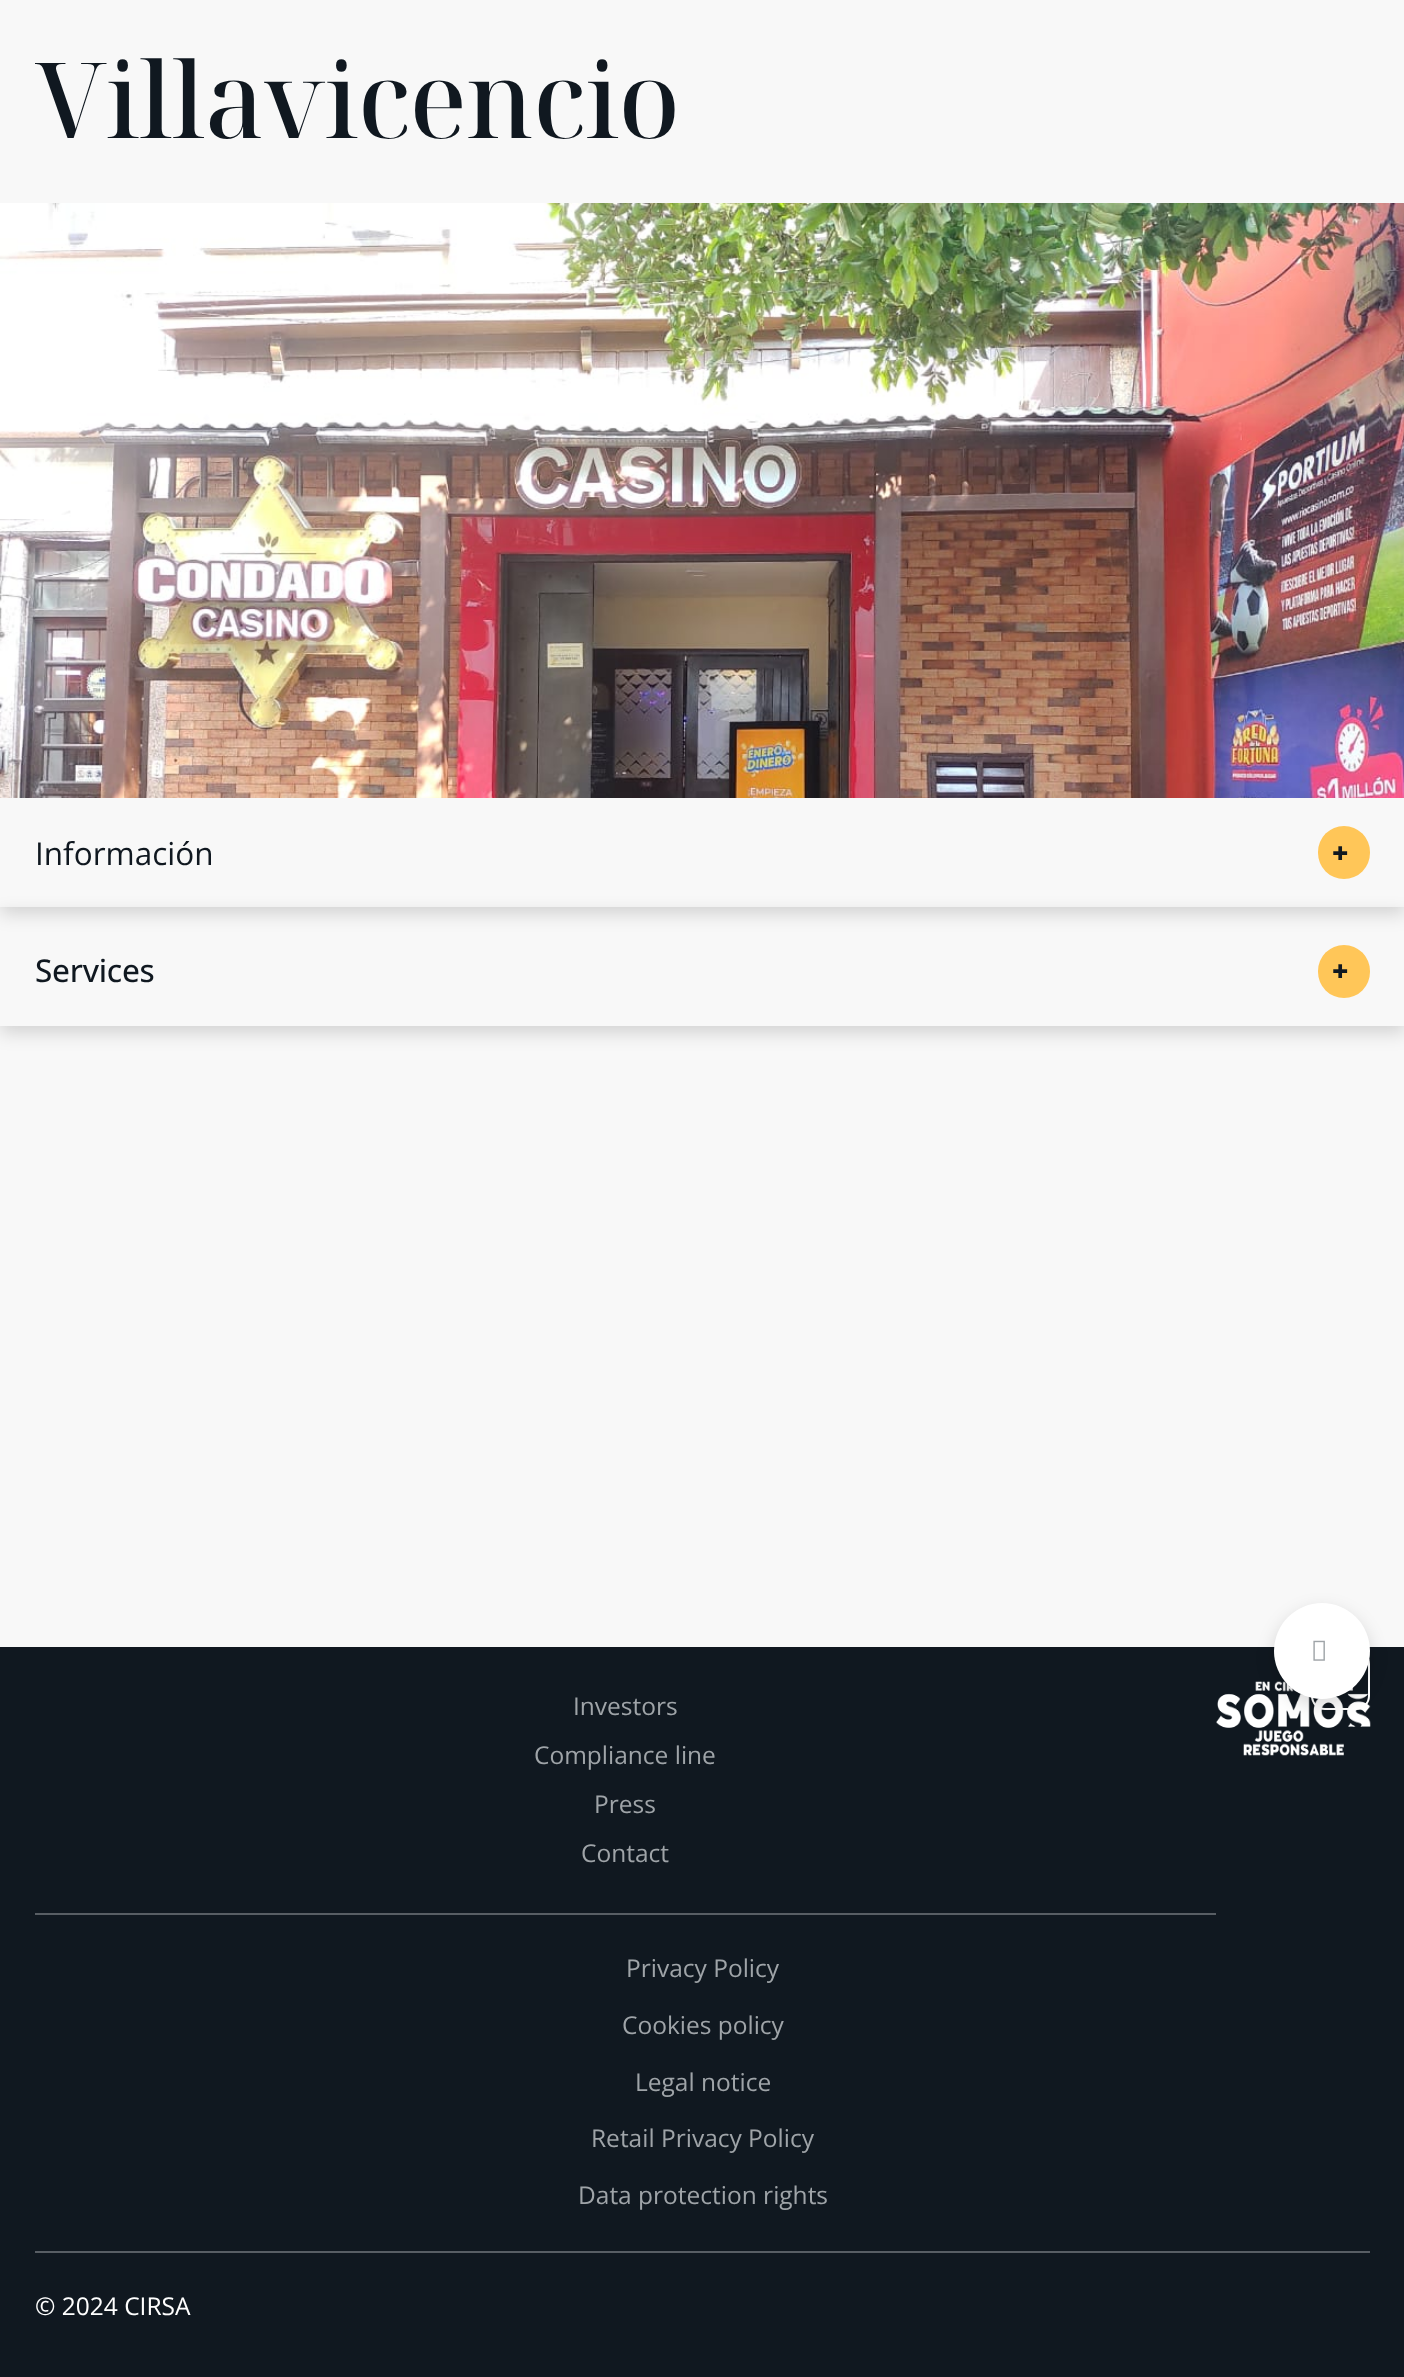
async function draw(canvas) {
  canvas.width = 1404
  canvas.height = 2377
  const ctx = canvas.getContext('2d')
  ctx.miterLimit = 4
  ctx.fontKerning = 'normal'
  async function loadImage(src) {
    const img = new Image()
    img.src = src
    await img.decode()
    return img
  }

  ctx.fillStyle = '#f8f8f8'
  ctx.fillRect(0, 0, 1404, 2377)
  ctx.letterSpacing = '-1px'
  ctx.font = '500 105px Noto Serif Display'
  ctx.fillStyle = '#101820'
  ctx.fillText('Villavicencio', 35, 138)
  ctx.save()
  ctx.beginPath()
  ctx.moveTo(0, 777)
  ctx.lineTo(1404, 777)
  ctx.lineTo(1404, 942)
  ctx.lineTo(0, 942)
  ctx.closePath()
  ctx.moveTo(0, 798)
  ctx.lineTo(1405, 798)
  ctx.lineTo(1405, 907)
  ctx.lineTo(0, 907)
  ctx.closePath()
  ctx.clip('evenodd')
  ctx.fillStyle = '#00000026'
  ctx.filter = 'blur(9px)'
  ctx.beginPath()
  ctx.rect(0, 805, 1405, 109)
  ctx.fill()
  ctx.filter = 'none'
  ctx.restore()
  ctx.drawImage(await loadImage('image0.png'), 0, 203, 1404, 595)
  ctx.letterSpacing = '0px'
  ctx.font = '31.5px Open Sans'
  ctx.fillText('Información', 35, 865)
  ctx.fillStyle = '#ffc658'
  ctx.beginPath()
  ctx.roundRect(1318, 826, 52, 53, 26)
  ctx.fill()
  ctx.font = '900 28px Noto Sans'
  ctx.fillStyle = '#101820'
  ctx.fillText('+', 1332, 863)
  ctx.save()
  ctx.beginPath()
  ctx.moveTo(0, 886)
  ctx.lineTo(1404, 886)
  ctx.lineTo(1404, 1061)
  ctx.lineTo(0, 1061)
  ctx.closePath()
  ctx.moveTo(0, 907)
  ctx.lineTo(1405, 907)
  ctx.lineTo(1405, 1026)
  ctx.lineTo(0, 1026)
  ctx.closePath()
  ctx.clip('evenodd')
  ctx.fillStyle = '#00000026'
  ctx.filter = 'blur(9px)'
  ctx.beginPath()
  ctx.rect(0, 914, 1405, 119)
  ctx.fill()
  ctx.filter = 'none'
  ctx.restore()
  ctx.letterSpacing = '-0.25px'
  ctx.font = '500 31.5px Open Sans'
  ctx.fillText('Services', 35, 982)
  ctx.fillStyle = '#ffc658'
  ctx.beginPath()
  ctx.roundRect(1318, 945, 52, 53, 26)
  ctx.fill()
  ctx.letterSpacing = '0px'
  ctx.font = '900 28px Noto Sans'
  ctx.fillStyle = '#101820'
  ctx.fillText('+', 1332, 981)
  ctx.fillRect(0, 1647, 1404, 730)
  ctx.drawImage(await loadImage('image3.png'), 1216, 1681, 155, 75)
  ctx.beginPath()
  ctx.roundRect(1312, 1651, 57, 58, 13)
  ctx.strokeStyle = '#fff'
  ctx.lineWidth = 2
  ctx.stroke()
  ctx.drawImage(await loadImage('image2.png'), 1348, 1687, 5, 4)
  ctx.fillStyle = '#00000026'
  ctx.filter = 'blur(9px)'
  ctx.beginPath()
  ctx.roundRect(1274, 1610, 96, 96, 48)
  ctx.fill()
  ctx.filter = 'none'
  ctx.fillStyle = '#fff'
  ctx.beginPath()
  ctx.arc(1322, 1651, 48, 0, 2 * Math.PI)
  ctx.fill()
  ctx.drawImage(await loadImage('image1.png'), 1313, 1640, 12, 21)
  ctx.fillStyle = '#585e64'
  ctx.fillRect(35, 1913, 1181, 2)
  ctx.font = '24.5px Open Sans'
  ctx.fillStyle = '#9fa4a8'
  ctx.fillText('Investors', 573, 1715)
  ctx.fillText('Compliance line', 534, 1764)
  ctx.fillText('Press', 594, 1813)
  ctx.fillText('Contact', 581, 1862)
  ctx.fillStyle = '#585e64'
  ctx.fillRect(35, 2251, 1335, 2)
  ctx.fillStyle = '#9fa4a8'
  ctx.fillText('Privacy Policy', 626, 1977)
  ctx.fillText('Cookies policy', 622, 2034)
  ctx.fillText('Legal notice', 635, 2091)
  ctx.fillText('Retail Privacy Policy', 591, 2147)
  ctx.fillText('Data protection rights', 578, 2204)
  ctx.fillStyle = '#fff'
  ctx.fillText('© 2024 CIRSA', 35, 2315)
}

draw(document.querySelector('canvas'))
